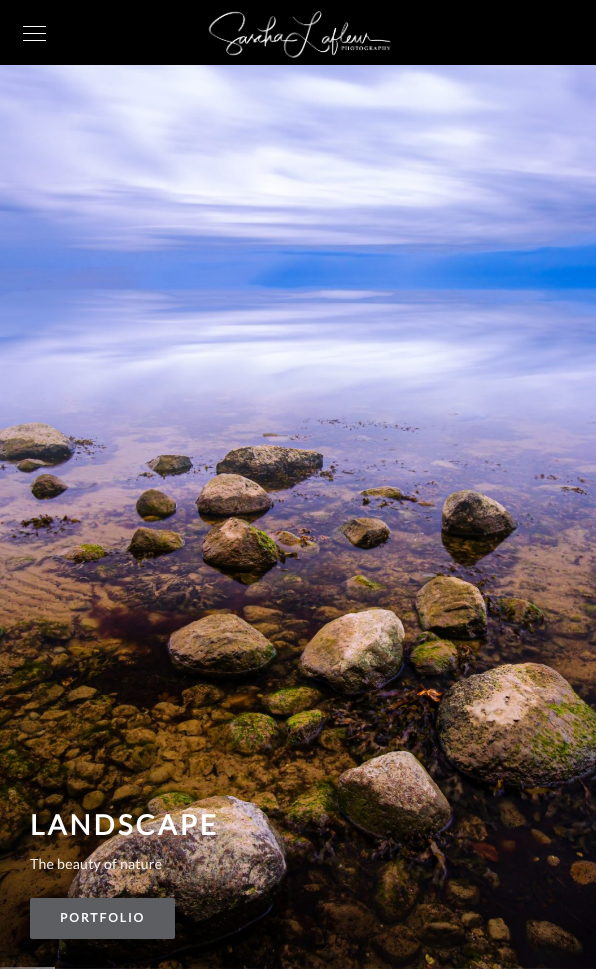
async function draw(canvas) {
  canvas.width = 596
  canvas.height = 969
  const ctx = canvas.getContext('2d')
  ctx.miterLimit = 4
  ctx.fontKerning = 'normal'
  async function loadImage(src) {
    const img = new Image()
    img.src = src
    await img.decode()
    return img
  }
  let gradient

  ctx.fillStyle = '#fff'
  ctx.fillRect(0, 0, 596, 969)
  ctx.fillStyle = '#000'
  ctx.fillRect(0, 0, 596, 65)
  ctx.drawImage(await loadImage('image0.png'), 208, 11, 183, 47)
  ctx.fillStyle = '#fff'
  ctx.fillRect(23, 33, 23, 1)
  ctx.fillRect(23, 26, 23, 1)
  ctx.fillRect(23, 40, 23, 1)
  ctx.drawImage(await loadImage('image2.png'), 0, 968, 596, 1)
  ctx.drawImage(await loadImage('image1.png'), 0, 65, 596, 904)
  ctx.letterSpacing = '3px'
  ctx.font = 'bold 28px Lato'
  ctx.fillText('LANDSCAPE', 30, 835)
  ctx.letterSpacing = '0.25px'
  ctx.font = '14px Lato'
  ctx.fillStyle = '#f0edeb'
  ctx.fillText('The beauty of nature', 30, 869)
  ctx.fillStyle = '#5d5e62'
  ctx.beginPath()
  ctx.roundRect(31, 899, 143, 39, 1)
  ctx.fill()
  ctx.strokeStyle = '#5d5e62'
  ctx.lineWidth = 2
  ctx.stroke()
  ctx.letterSpacing = '2px'
  ctx.font = 'bold 12px Lato'
  ctx.fillStyle = '#fff'
  ctx.fillText('PORTFOLIO', 60, 922)
  gradient = ctx.createLinearGradient(-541, 968, 55, 968)
  gradient.addColorStop(0, '#ffffff00')
  gradient.addColorStop(0.82, '#ffffff00')
  gradient.addColorStop(1, '#ffffff80')
  ctx.fillStyle = gradient
  ctx.fillRect(0, 967, 55, 2)
}

draw(document.querySelector('canvas'))
